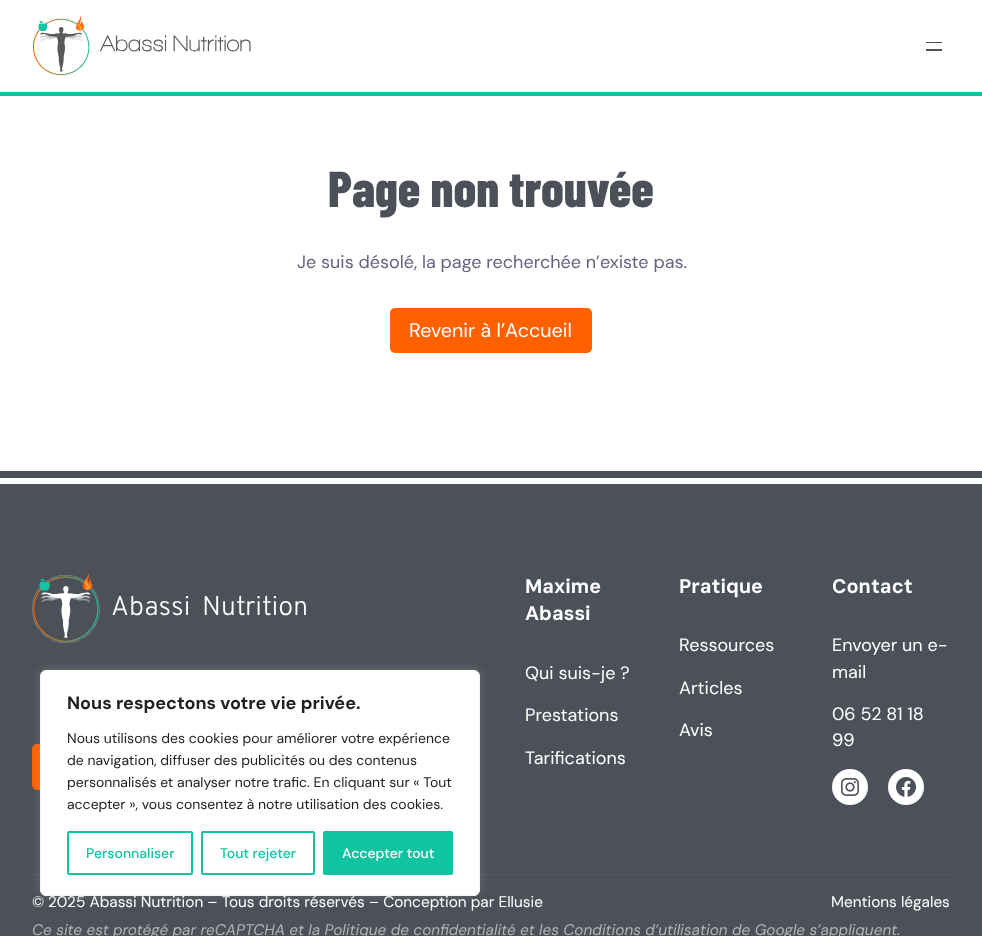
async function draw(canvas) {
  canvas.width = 982
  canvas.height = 936
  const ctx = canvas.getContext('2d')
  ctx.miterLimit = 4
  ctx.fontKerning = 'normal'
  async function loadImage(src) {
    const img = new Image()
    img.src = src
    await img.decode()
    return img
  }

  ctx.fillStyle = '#fff'
  ctx.fillRect(0, 0, 982, 936)
  ctx.fillStyle = '#12c3a1'
  ctx.fillRect(0, 92, 982, 4)
  ctx.drawImage(await loadImage('image0.png'), 32, 16, 219, 60)
  ctx.fillStyle = '#4c5159'
  ctx.fillRect(926, 42, 16, 1)
  ctx.fillRect(926, 49, 16, 2)
  ctx.font = '800 50.5px Barlow Condensed'
  ctx.fillText('Page non trouvée', 328, 207)
  ctx.font = '18px DM Sans'
  ctx.fillStyle = '#636381'
  ctx.fillText('Je suis désolé, la page recherchée n’existe pas.', 297, 268)
  ctx.fillStyle = '#ff6101'
  ctx.beginPath()
  ctx.roundRect(390, 308, 202, 45, 5)
  ctx.fill()
  ctx.font = '19.75px "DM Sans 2"'
  ctx.fillStyle = '#fff'
  ctx.fillText('Revenir à l’Accueil', 409, 337)
  ctx.fillStyle = '#4c5159'
  ctx.fillRect(0, 471, 982, 7)
  ctx.fillRect(0, 484, 982, 452)
  ctx.drawImage(await loadImage('image1.png'), 32, 573, 274, 70)
  ctx.fillStyle = '#ff6101'
  ctx.beginPath()
  ctx.roundRect(32, 744, 217, 46, 5)
  ctx.fill()
  ctx.font = 'bold 19.75px DM Sans'
  ctx.fillStyle = '#fff'
  ctx.fillText('Maxime', 525, 593)
  ctx.fillText('Abassi', 525, 620)
  ctx.font = '18px DM Sans'
  ctx.fillText('Qui suis-je ?', 525, 679)
  ctx.fillText('Prestations', 525, 721)
  ctx.fillText('Tarifications', 525, 764)
  ctx.font = 'bold 19.75px DM Sans'
  ctx.fillText('Pratique', 679, 593)
  ctx.font = '18px DM Sans'
  ctx.fillText('Ressources', 679, 651)
  ctx.fillText('Articles', 679, 694)
  ctx.fillText('Avis', 679, 736)
  ctx.font = 'bold 19.75px DM Sans'
  ctx.fillText('Contact', 832, 593)
  ctx.font = '18px DM Sans'
  ctx.fillText('Envoyer un e-', 832, 651)
  ctx.fillText('mail', 832, 678)
  ctx.fillText('06 52 81 18', 832, 720)
  ctx.fillText('99', 832, 746)
  ctx.beginPath()
  ctx.arc(850, 787, 18, 0, 2 * Math.PI)
  ctx.fill()
  ctx.drawImage(await loadImage('image2.png'), 841, 778, 18, 18)
  ctx.beginPath()
  ctx.arc(906, 787, 18, 0, 2 * Math.PI)
  ctx.fill()
  ctx.drawImage(await loadImage('image3.png'), 896, 777, 20, 20)
  ctx.fillStyle = '#555869'
  ctx.fillRect(32, 874, 918, 1)
  ctx.font = '15.38px "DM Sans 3"'
  ctx.fillStyle = '#fff'
  ctx.fillText('©', 32, 907)
  ctx.font = '15.38px "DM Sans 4"'
  ctx.fillText('2025 Abassi Nutrition – Tous droits réservés – Conception par Ellusie', 48, 907)
  ctx.fillText('Mentions légales', 831, 907)
  ctx.font = 'italic 15.38px DM Sans'
  ctx.fillStyle = '#b3b3b3'
  ctx.fillText('Ce site est protégé par reCAPTCHA et la Politique de confidentialité et les Conditions d’utilisation de Google s’appliquent.', 32, 935)
  ctx.fillStyle = '#acabab4d'
  ctx.filter = 'blur(5px)'
  ctx.beginPath()
  ctx.roundRect(40, 669, 440, 226, 6)
  ctx.fill()
  ctx.filter = 'none'
  ctx.fillStyle = '#fff'
  ctx.beginPath()
  ctx.roundRect(40.5, 670.5, 439, 225, 5.5)
  ctx.fill()
  ctx.strokeStyle = '#f4f4f4'
  ctx.stroke()
  ctx.font = 'bold 18px "DM Sans 2"'
  ctx.fillStyle = '#212121'
  ctx.fillText('Nous respectons votre vie privée.', 67, 709)
  ctx.font = '14px "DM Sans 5"'
  ctx.fillText('Nous utilisons des cookies pour améliorer votre expérience', 67, 743)
  ctx.fillText('de navigation, diffuser des publicités ou des contenus', 67, 765)
  ctx.fillText('personnalisés et analyser notre trafic. En cliquant sur « Tout', 67, 787)
  ctx.fillText('accepter », vous consentez à notre utilisation des cookies.', 67, 809)
  ctx.beginPath()
  ctx.roundRect(68, 832, 124, 42, 1)
  ctx.strokeStyle = '#10c3a1'
  ctx.lineWidth = 2
  ctx.stroke()
  ctx.font = '500 14px DM Sans'
  ctx.fillStyle = '#10c3a1'
  ctx.fillText('Personnaliser', 86, 858)
  ctx.beginPath()
  ctx.roundRect(202, 832, 112, 42, 1)
  ctx.stroke()
  ctx.fillText('Tout rejeter', 220, 858)
  ctx.beginPath()
  ctx.roundRect(324, 832, 128, 42, 1)
  ctx.fill()
  ctx.stroke()
  ctx.fillStyle = '#fff'
  ctx.fillText('Accepter tout', 342, 858)
}

draw(document.querySelector('canvas'))
